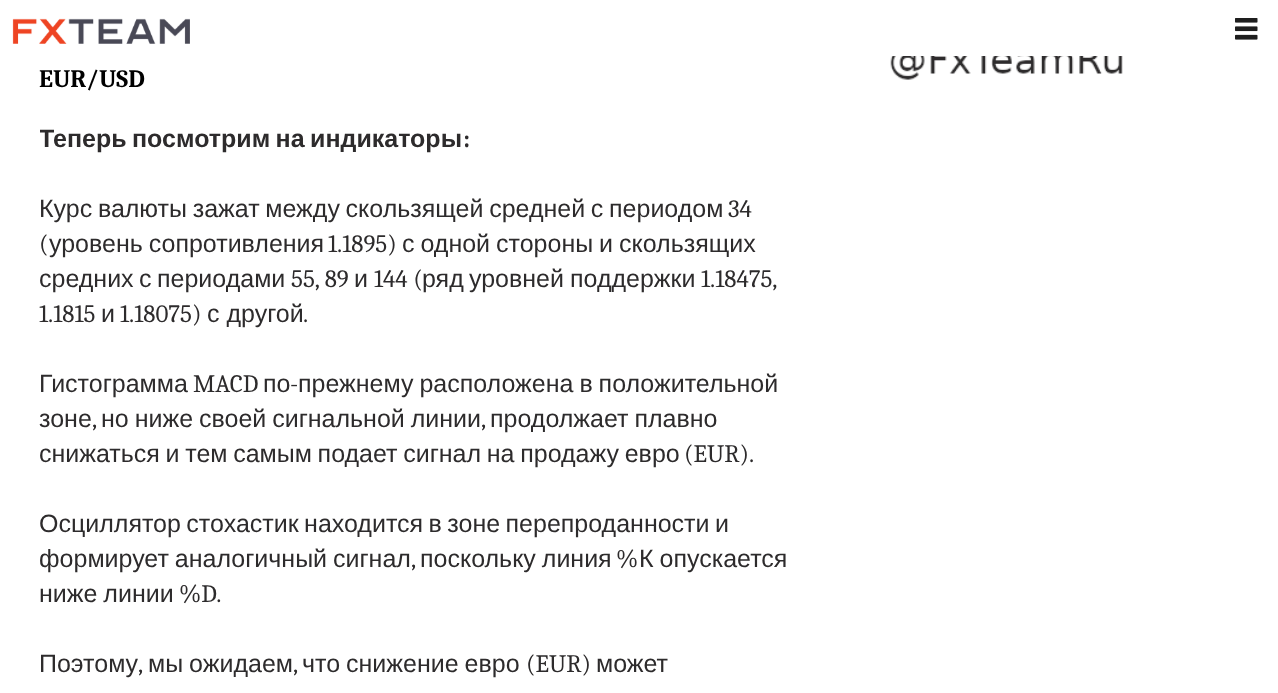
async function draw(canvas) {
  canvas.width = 1278
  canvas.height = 693
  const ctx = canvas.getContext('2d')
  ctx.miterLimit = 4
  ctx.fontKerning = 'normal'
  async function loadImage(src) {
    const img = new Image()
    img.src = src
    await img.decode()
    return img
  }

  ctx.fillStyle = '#fff'
  ctx.fillRect(0, 0, 1278, 693)
  ctx.drawImage(await loadImage('image0.png'), 12, 18, 178, 26)
  ctx.drawImage(await loadImage('image1.png'), 1235, 18, 23, 22)
  ctx.font = 'bold 25px Caladea'
  ctx.fillStyle = '#000'
  ctx.fillText('EUR/USD', 39, 87)
  ctx.save()
  ctx.beginPath()
  ctx.rect(40, 0, 1200, 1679)
  ctx.clip()
  ctx.wordSpacing = '-1.5px'
  ctx.font = 'bold 25px Liberation Sans'
  ctx.fillStyle = '#2d2b2c'
  ctx.fillText('Теперь посмотрим на индикаторы', 39, 147)
  ctx.restore()
  ctx.fillStyle = '#2d2b2c'
  ctx.fillText(':', 463, 147)
  ctx.wordSpacing = '-1.25px'
  ctx.font = '25px Liberation Sans'
  ctx.fillText('Курс валюты зажат между скользящей средней с периодом', 39, 217)
  ctx.wordSpacing = '0px'
  ctx.font = '25px Caladea'
  ctx.fillText('34', 728, 217)
  ctx.fillText('(', 39, 252)
  ctx.wordSpacing = '-1px'
  ctx.font = '25px Liberation Sans'
  ctx.fillText('уровень сопротивления', 49, 252)
  ctx.wordSpacing = '0px'
  ctx.font = '25px Caladea'
  ctx.fillText('1.1895)', 328, 252)
  ctx.wordSpacing = '-1px'
  ctx.font = '25px Liberation Sans'
  ctx.fillText('с одной стороны и скользящих', 402, 252)
  ctx.wordSpacing = '0px'
  ctx.fillText('средних', 39, 287)
  ctx.fillText('с', 139, 287)
  ctx.fillText('периодами', 157, 287)
  ctx.font = '25px Caladea'
  ctx.fillText('55, 89', 291, 287)
  ctx.font = '25px Liberation Sans'
  ctx.fillText('и', 354, 287)
  ctx.font = '25px Caladea'
  ctx.fillText('144 (', 374, 287)
  ctx.font = '25px Liberation Sans'
  ctx.fillText('ряд', 422, 287)
  ctx.fillText('уровней', 469, 287)
  ctx.fillText('поддержки', 570, 287)
  ctx.font = '25px Caladea'
  ctx.fillText('1.18475,', 701, 287)
  ctx.fillText('1.1815', 39, 322)
  ctx.font = '25px Liberation Sans'
  ctx.fillText('и', 101, 322)
  ctx.font = '25px Caladea'
  ctx.fillText('1.18075)', 120, 322)
  ctx.font = '25px Liberation Sans'
  ctx.fillText('с другой', 207, 322)
  ctx.font = '25px Caladea'
  ctx.fillText('.', 303, 322)
  ctx.font = '25px Liberation Sans'
  ctx.fillText('Гистограмма', 39, 392)
  ctx.font = '25px Caladea'
  ctx.fillText('MACD', 193, 392)
  ctx.font = '25px Liberation Sans'
  ctx.fillText('по', 263, 392)
  ctx.font = '25px Caladea'
  ctx.fillText('-', 290, 392)
  ctx.wordSpacing = '-1px'
  ctx.font = '25px Liberation Sans'
  ctx.fillText('прежнему расположена в положительной', 298, 392)
  ctx.wordSpacing = '0px'
  ctx.fillText('зоне', 39, 427)
  ctx.font = '25px Caladea'
  ctx.fillText(',', 92, 427)
  ctx.wordSpacing = '-1px'
  ctx.font = '25px Liberation Sans'
  ctx.fillText('но ниже своей сигнальной линии', 101, 427)
  ctx.wordSpacing = '0px'
  ctx.font = '25px Caladea'
  ctx.fillText(',', 481, 427)
  ctx.wordSpacing = '-1px'
  ctx.font = '25px Liberation Sans'
  ctx.fillText('продолжает плавно', 490, 427)
  ctx.wordSpacing = '-1.25px'
  ctx.fillText('снижаться и тем самым подает сигнал на продажу евро', 39, 462)
  ctx.wordSpacing = '0px'
  ctx.font = '25px Caladea'
  ctx.fillText('(EUR).', 684, 462)
  ctx.wordSpacing = '-1.5px'
  ctx.font = '25px Liberation Sans'
  ctx.fillText('Осциллятор стохастик находится в зоне перепроданности и', 39, 532)
  ctx.wordSpacing = '-1px'
  ctx.fillText('формирует аналогичный сигнал', 39, 567)
  ctx.wordSpacing = '0px'
  ctx.font = '25px Caladea'
  ctx.fillText(',', 411, 567)
  ctx.wordSpacing = '-1px'
  ctx.font = '25px Liberation Sans'
  ctx.fillText('поскольку линия', 420, 567)
  ctx.wordSpacing = '0px'
  ctx.font = '25px Caladea'
  ctx.fillText('%', 616, 567)
  ctx.wordSpacing = '-1px'
  ctx.font = '25px Liberation Sans'
  ctx.fillText('К опускается', 639, 567)
  ctx.fillText('ниже линии', 39, 602)
  ctx.wordSpacing = '0px'
  ctx.font = '25px Caladea'
  ctx.fillText('%D.', 179, 602)
  ctx.font = '25px Liberation Sans'
  ctx.fillText('Поэтому', 39, 672)
  ctx.font = '25px Caladea'
  ctx.fillText(',', 138, 672)
  ctx.wordSpacing = '-1px'
  ctx.font = '25px Liberation Sans'
  ctx.fillText('мы ожидаем', 148, 672)
  ctx.wordSpacing = '0px'
  ctx.font = '25px Caladea'
  ctx.fillText(',', 293, 672)
  ctx.wordSpacing = '-1px'
  ctx.font = '25px Liberation Sans'
  ctx.fillText('что снижение евро', 302, 672)
  ctx.wordSpacing = '0px'
  ctx.font = '25px Caladea'
  ctx.fillText('(EUR)', 526, 672)
  ctx.font = '25px Liberation Sans'
  ctx.fillText('может', 596, 672)
  ctx.drawImage(await loadImage('image2.png'), 888, 56, 235, 24)
}

draw(document.querySelector('canvas'))
